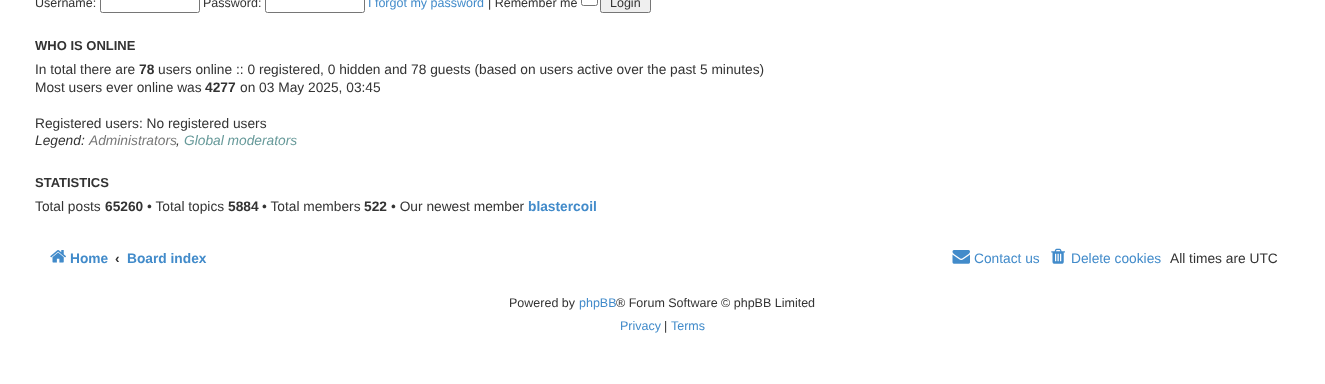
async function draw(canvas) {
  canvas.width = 1325
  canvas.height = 384
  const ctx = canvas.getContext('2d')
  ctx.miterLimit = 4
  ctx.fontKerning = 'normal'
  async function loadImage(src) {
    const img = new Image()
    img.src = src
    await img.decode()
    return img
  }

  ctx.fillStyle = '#fff'
  ctx.fillRect(0, 0, 1325, 384)
  ctx.font = '12.5px Liberation Sans'
  ctx.fillStyle = '#333'
  ctx.fillText('Username:', 35, 7)
  ctx.beginPath()
  ctx.roundRect(100.5, -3.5, 99, 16, 2)
  ctx.strokeStyle = '#767676'
  ctx.stroke()
  ctx.fillText('Password:', 203, 7)
  ctx.beginPath()
  ctx.roundRect(265.5, -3.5, 99, 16, 2)
  ctx.stroke()
  ctx.fillStyle = '#428bca'
  ctx.fillText('I forgot my password', 368, 7)
  ctx.fillStyle = '#333'
  ctx.fillText('| Remember me', 488, 7)
  ctx.beginPath()
  ctx.roundRect(581.5, -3.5, 16, 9, 2)
  ctx.stroke()
  ctx.fillStyle = '#efefef'
  ctx.beginPath()
  ctx.roundRect(600.5, -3.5, 50, 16, 2)
  ctx.fill()
  ctx.stroke()
  ctx.fillStyle = '#333'
  ctx.fillText('Login', 610, 7)
  ctx.font = 'bold 13px Liberation Sans'
  ctx.fillText('WHO IS ONLINE', 35, 50)
  ctx.font = '13.75px Liberation Sans'
  ctx.fillText('In total there are', 35, 74)
  ctx.font = 'bold 13.75px Liberation Sans'
  ctx.fillText('78', 139, 74)
  ctx.font = '13.75px Liberation Sans'
  ctx.fillText('users online :: 0 registered, 0 hidden and 78 guests (based on users active over the past 5 minutes)', 158, 74)
  ctx.fillText('Most users ever online was', 35, 92)
  ctx.font = 'bold 13.75px Liberation Sans'
  ctx.fillText('4277', 205, 92)
  ctx.font = '13.75px Liberation Sans'
  ctx.fillText('on 03 May 2025, 03:45', 240, 92)
  ctx.fillText('Registered users: No registered users', 35, 128)
  ctx.font = 'italic 13.75px Liberation Sans'
  ctx.fillText('Legend:', 35, 145)
  ctx.fillStyle = '#777'
  ctx.fillText('Administrators', 89, 145)
  ctx.fillStyle = '#333'
  ctx.fillText(',', 176, 145)
  ctx.fillStyle = '#699'
  ctx.fillText('Global moderators', 184, 145)
  ctx.font = 'bold 13px Liberation Sans'
  ctx.fillStyle = '#333'
  ctx.fillText('STATISTICS', 35, 187)
  ctx.font = '13.75px Liberation Sans'
  ctx.fillText('Total posts', 35, 211)
  ctx.font = 'bold 13.75px Liberation Sans'
  ctx.fillText('65260', 105, 211)
  ctx.font = '13.75px Liberation Sans'
  ctx.fillText('• Total topics', 147, 211)
  ctx.font = 'bold 13.75px Liberation Sans'
  ctx.fillText('5884', 228, 211)
  ctx.font = '13.75px Liberation Sans'
  ctx.fillText('• Total members', 262, 211)
  ctx.font = 'bold 13.75px Liberation Sans'
  ctx.fillText('522', 364, 211)
  ctx.font = '13.75px Liberation Sans'
  ctx.fillText('• Our newest member', 391, 211)
  ctx.font = 'bold 13.75px Liberation Sans'
  ctx.fillStyle = '#428bca'
  ctx.fillText('blastercoil', 528, 211)
  ctx.drawImage(await loadImage('image0.png'), 50, 250, 16, 13)
  ctx.fillText('Home', 70, 263)
  ctx.fillStyle = '#333'
  ctx.fillText('‹', 115, 263)
  ctx.fillStyle = '#428bca'
  ctx.fillText('Board index', 127, 263)
  ctx.drawImage(await loadImage('image1.png'), 952, 250, 18, 14)
  ctx.font = '13.75px Liberation Sans'
  ctx.fillText('Contact us', 974, 263)
  ctx.drawImage(await loadImage('image2.png'), 1051, 248, 14, 16)
  ctx.fillText('Delete cookies', 1071, 263)
  ctx.fillStyle = '#333'
  ctx.fillText('All times are UTC', 1170, 263)
  ctx.font = '12.5px Liberation Sans'
  ctx.fillText('Powered by', 509, 307)
  ctx.fillStyle = '#428bca'
  ctx.fillText('phpBB', 579, 307)
  ctx.fillStyle = '#333'
  ctx.fillText('® Forum Software © phpBB Limited', 616, 307)
  ctx.fillStyle = '#428bca'
  ctx.fillText('Privacy', 620, 330)
  ctx.fillStyle = '#333'
  ctx.fillText('|', 664, 330)
  ctx.fillStyle = '#428bca'
  ctx.fillText('Terms', 671, 330)
}

draw(document.querySelector('canvas'))
